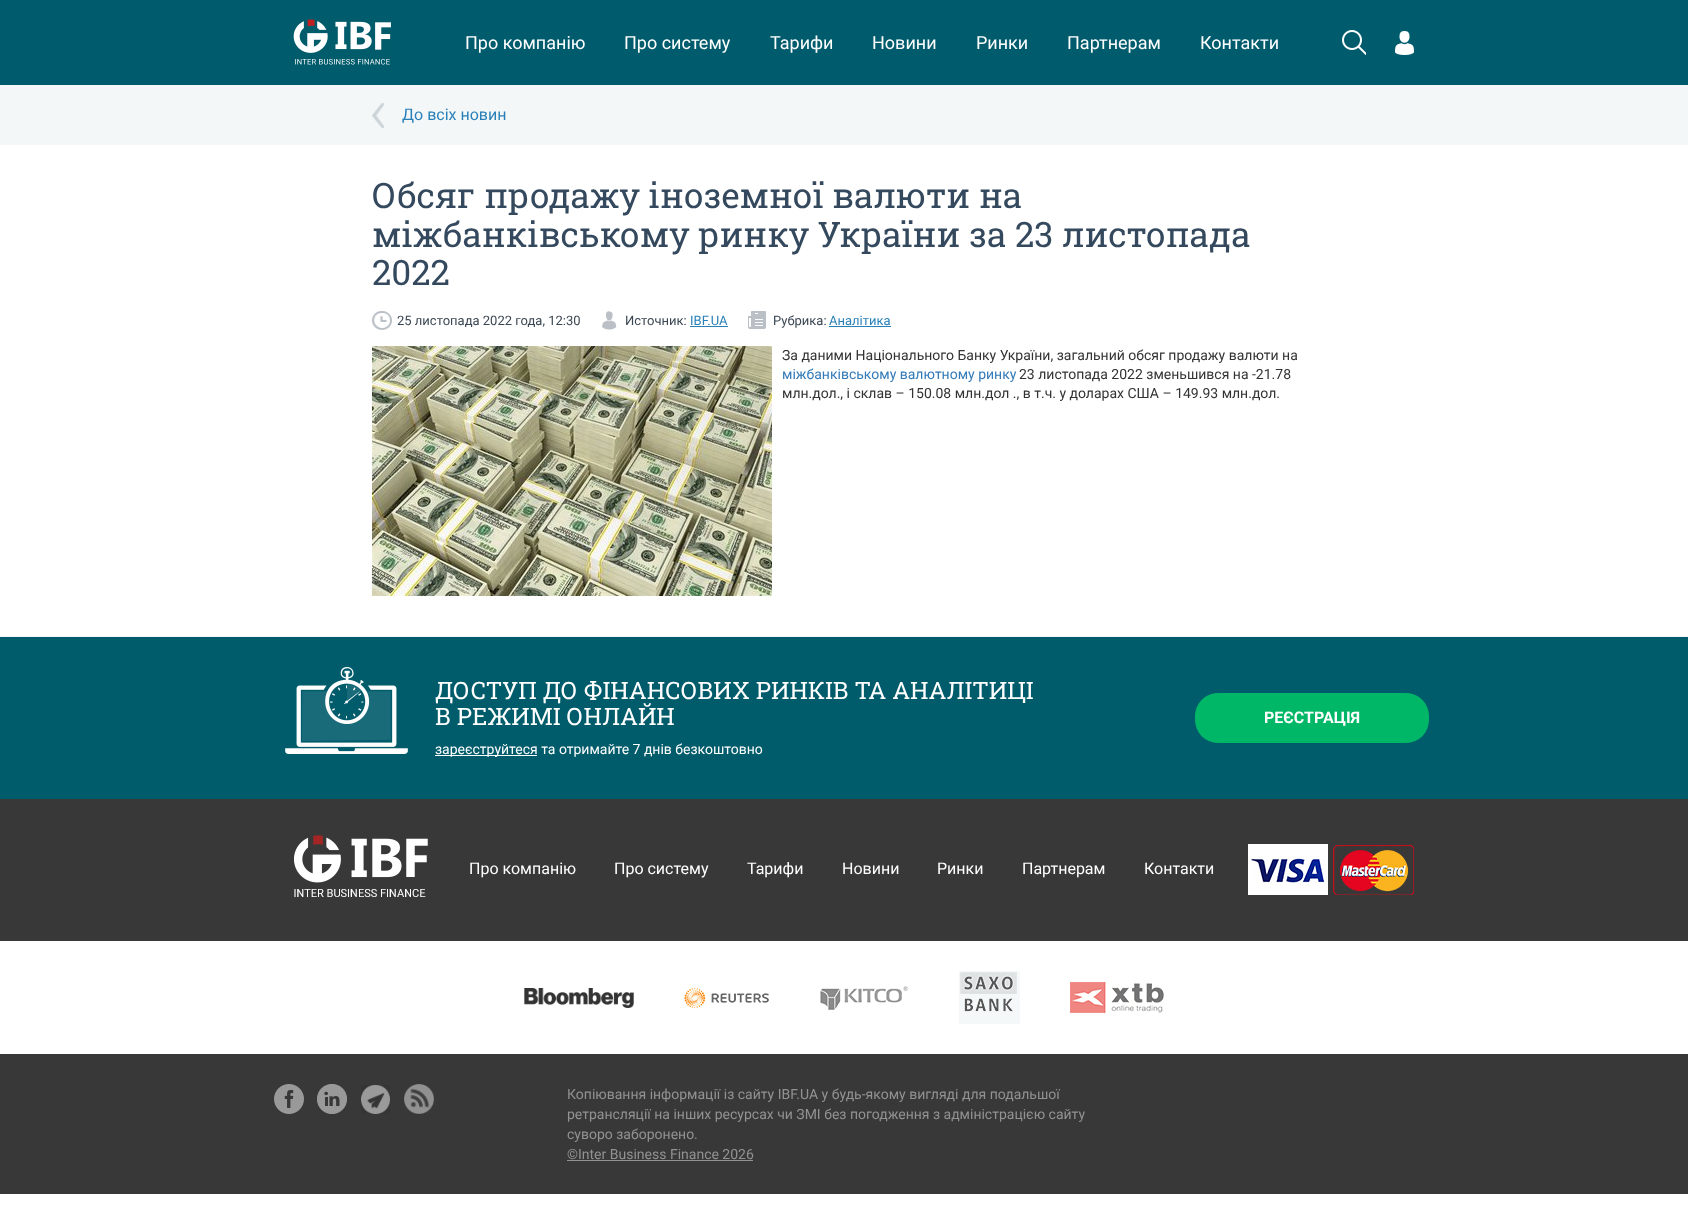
async function draw(canvas) {
  canvas.width = 1688
  canvas.height = 1220
  const ctx = canvas.getContext('2d')
  ctx.miterLimit = 4
  ctx.fontKerning = 'normal'
  async function loadImage(src) {
    const img = new Image()
    img.src = src
    await img.decode()
    return img
  }

  ctx.fillStyle = '#fff'
  ctx.fillRect(0, 0, 1688, 1220)
  ctx.fillStyle = '#005c6d'
  ctx.fillRect(0, 0, 1688, 85)
  ctx.drawImage(await loadImage('image0.png'), 293, 19, 98, 46)
  ctx.font = '18px Roboto'
  ctx.fillStyle = '#fff'
  ctx.fillText('Про компанію', 465, 49)
  ctx.fillText('Про систему', 624, 49)
  ctx.fillText('Тарифи', 770, 49)
  ctx.fillText('Новини', 872, 49)
  ctx.fillText('Ринки', 976, 49)
  ctx.fillText('Партнерам', 1067, 49)
  ctx.fillText('Контакти', 1200, 49)
  ctx.drawImage(await loadImage('image1.png'), 1342, 30, 24, 25)
  ctx.drawImage(await loadImage('image2.png'), 1395, 31, 19, 24)
  ctx.fillStyle = '#f3f7f7'
  ctx.fillRect(0, 85, 1688, 60)
  ctx.drawImage(await loadImage('image3.png'), 372, 103, 12, 25)
  ctx.font = '16px Roboto'
  ctx.fillStyle = '#2980b9'
  ctx.fillText('До всіх новин', 402, 120)
  ctx.font = '35px Roboto Slab'
  ctx.fillStyle = '#34495e'
  ctx.fillText('Обсяг продажу іноземної валюти на', 372, 208)
  ctx.fillText('міжбанківському ринку України за 23 листопада', 372, 247)
  ctx.fillText('2022', 372, 285)
  ctx.drawImage(await loadImage('image4.png'), 372, 311, 20, 19)
  ctx.font = '13px Roboto'
  ctx.fillStyle = '#3a4652'
  ctx.fillText('25 листопада 2022 года, 12:30', 397, 325)
  ctx.drawImage(await loadImage('image5.png'), 602, 311, 15, 19)
  ctx.fillText('Источник:', 625, 325)
  ctx.fillStyle = '#2980b9'
  ctx.fillText('IBF.UA', 690, 325)
  ctx.fillRect(690, 326, 38, 1)
  ctx.drawImage(await loadImage('image6.png'), 748, 311, 18, 18)
  ctx.fillStyle = '#3a4652'
  ctx.fillText('Рубрика:', 773, 325)
  ctx.fillStyle = '#2980b9'
  ctx.fillText('Аналітика', 829, 325)
  ctx.fillRect(829, 326, 62, 1)
  ctx.drawImage(await loadImage('image7.png'), 372, 346, 400, 250)
  ctx.font = '14px Roboto'
  ctx.fillStyle = '#333'
  ctx.fillText('За даними Національного Банку України, загальний обсяг продажу валюти на', 782, 360)
  ctx.fillStyle = '#337ab7'
  ctx.fillText('міжбанківському валютному ринку', 782, 379)
  ctx.fillStyle = '#333'
  ctx.fillText('23 листопада 2022 зменьшився на -21.78', 1019, 379)
  ctx.fillText('млн.дол., і склав – 150.08 млн.дол ., в т.ч. у доларах США – 149.93 млн.дол.', 782, 398)
  ctx.fillStyle = '#f3f7f7'
  ctx.fillRect(0, 636, 1688, 1)
  ctx.fillStyle = '#005b6b'
  ctx.fillRect(0, 637, 1688, 162)
  ctx.drawImage(await loadImage('image8.png'), 285, 667, 123, 87)
  ctx.font = '24px Roboto Slab'
  ctx.fillStyle = '#fff'
  ctx.fillText('ДОСТУП ДО ФІНАНСОВИХ РИНКІВ ТА АНАЛІТИЦІ', 435, 699)
  ctx.fillText('В РЕЖИМІ ОНЛАЙН', 435, 725)
  ctx.fillRect(435, 755, 102, 1)
  ctx.font = '14px Roboto'
  ctx.fillText('зареєструйтеся та отримайте 7 днів безкоштовно', 435, 754)
  ctx.fillStyle = '#00b767'
  ctx.beginPath()
  ctx.roundRect(1195, 693, 234, 50, 23)
  ctx.fill()
  ctx.font = 'bold 16px Roboto'
  ctx.fillStyle = '#fff'
  ctx.fillText('РЕЄСТРАЦІЯ', 1264, 723)
  ctx.fillStyle = '#383838'
  ctx.fillRect(0, 799, 1688, 142)
  ctx.drawImage(await loadImage('image9.png'), 294, 835, 134, 62)
  ctx.drawImage(await loadImage('image10.png'), 1248, 844, 166, 51)
  ctx.font = '16px Roboto'
  ctx.fillStyle = '#fff'
  ctx.fillText('Про компанію', 469, 874)
  ctx.fillText('Про систему', 614, 874)
  ctx.fillText('Тарифи', 747, 874)
  ctx.fillText('Новини', 842, 874)
  ctx.fillText('Ринки', 937, 874)
  ctx.fillText('Партнерам', 1022, 874)
  ctx.fillText('Контакти', 1144, 874)
  ctx.drawImage(await loadImage('image11.png'), 524, 988, 110, 20)
  ctx.drawImage(await loadImage('image12.png'), 684, 988, 85, 20)
  ctx.drawImage(await loadImage('image13.png'), 820, 986, 89, 24)
  ctx.drawImage(await loadImage('image14.png'), 959, 971, 61, 53)
  ctx.drawImage(await loadImage('image15.png'), 1070, 982, 94, 31)
  ctx.fillStyle = '#383838'
  ctx.fillRect(0, 1054, 1688, 140)
  ctx.drawImage(await loadImage('image16.png'), 274, 1084, 30, 30)
  ctx.drawImage(await loadImage('image17.png'), 317, 1084, 30, 30)
  ctx.drawImage(await loadImage('image18.png'), 361, 1085, 29, 29)
  ctx.drawImage(await loadImage('image19.png'), 404, 1084, 30, 30)
  ctx.font = '14px Roboto'
  ctx.fillStyle = '#929292'
  ctx.fillText('Копіювання інформації із сайту IBF.UA у будь-якому вигляді для подальшої', 567, 1099)
  ctx.fillText('ретрансляції на інших ресурсах чи ЗМІ без погодження з адміністрацією сайту', 567, 1119)
  ctx.fillText('суворо заборонено.', 567, 1139)
  ctx.fillText('©Inter Business Finance 2026', 567, 1159)
  ctx.fillRect(567, 1160, 186, 1)
}

draw(document.querySelector('canvas'))
